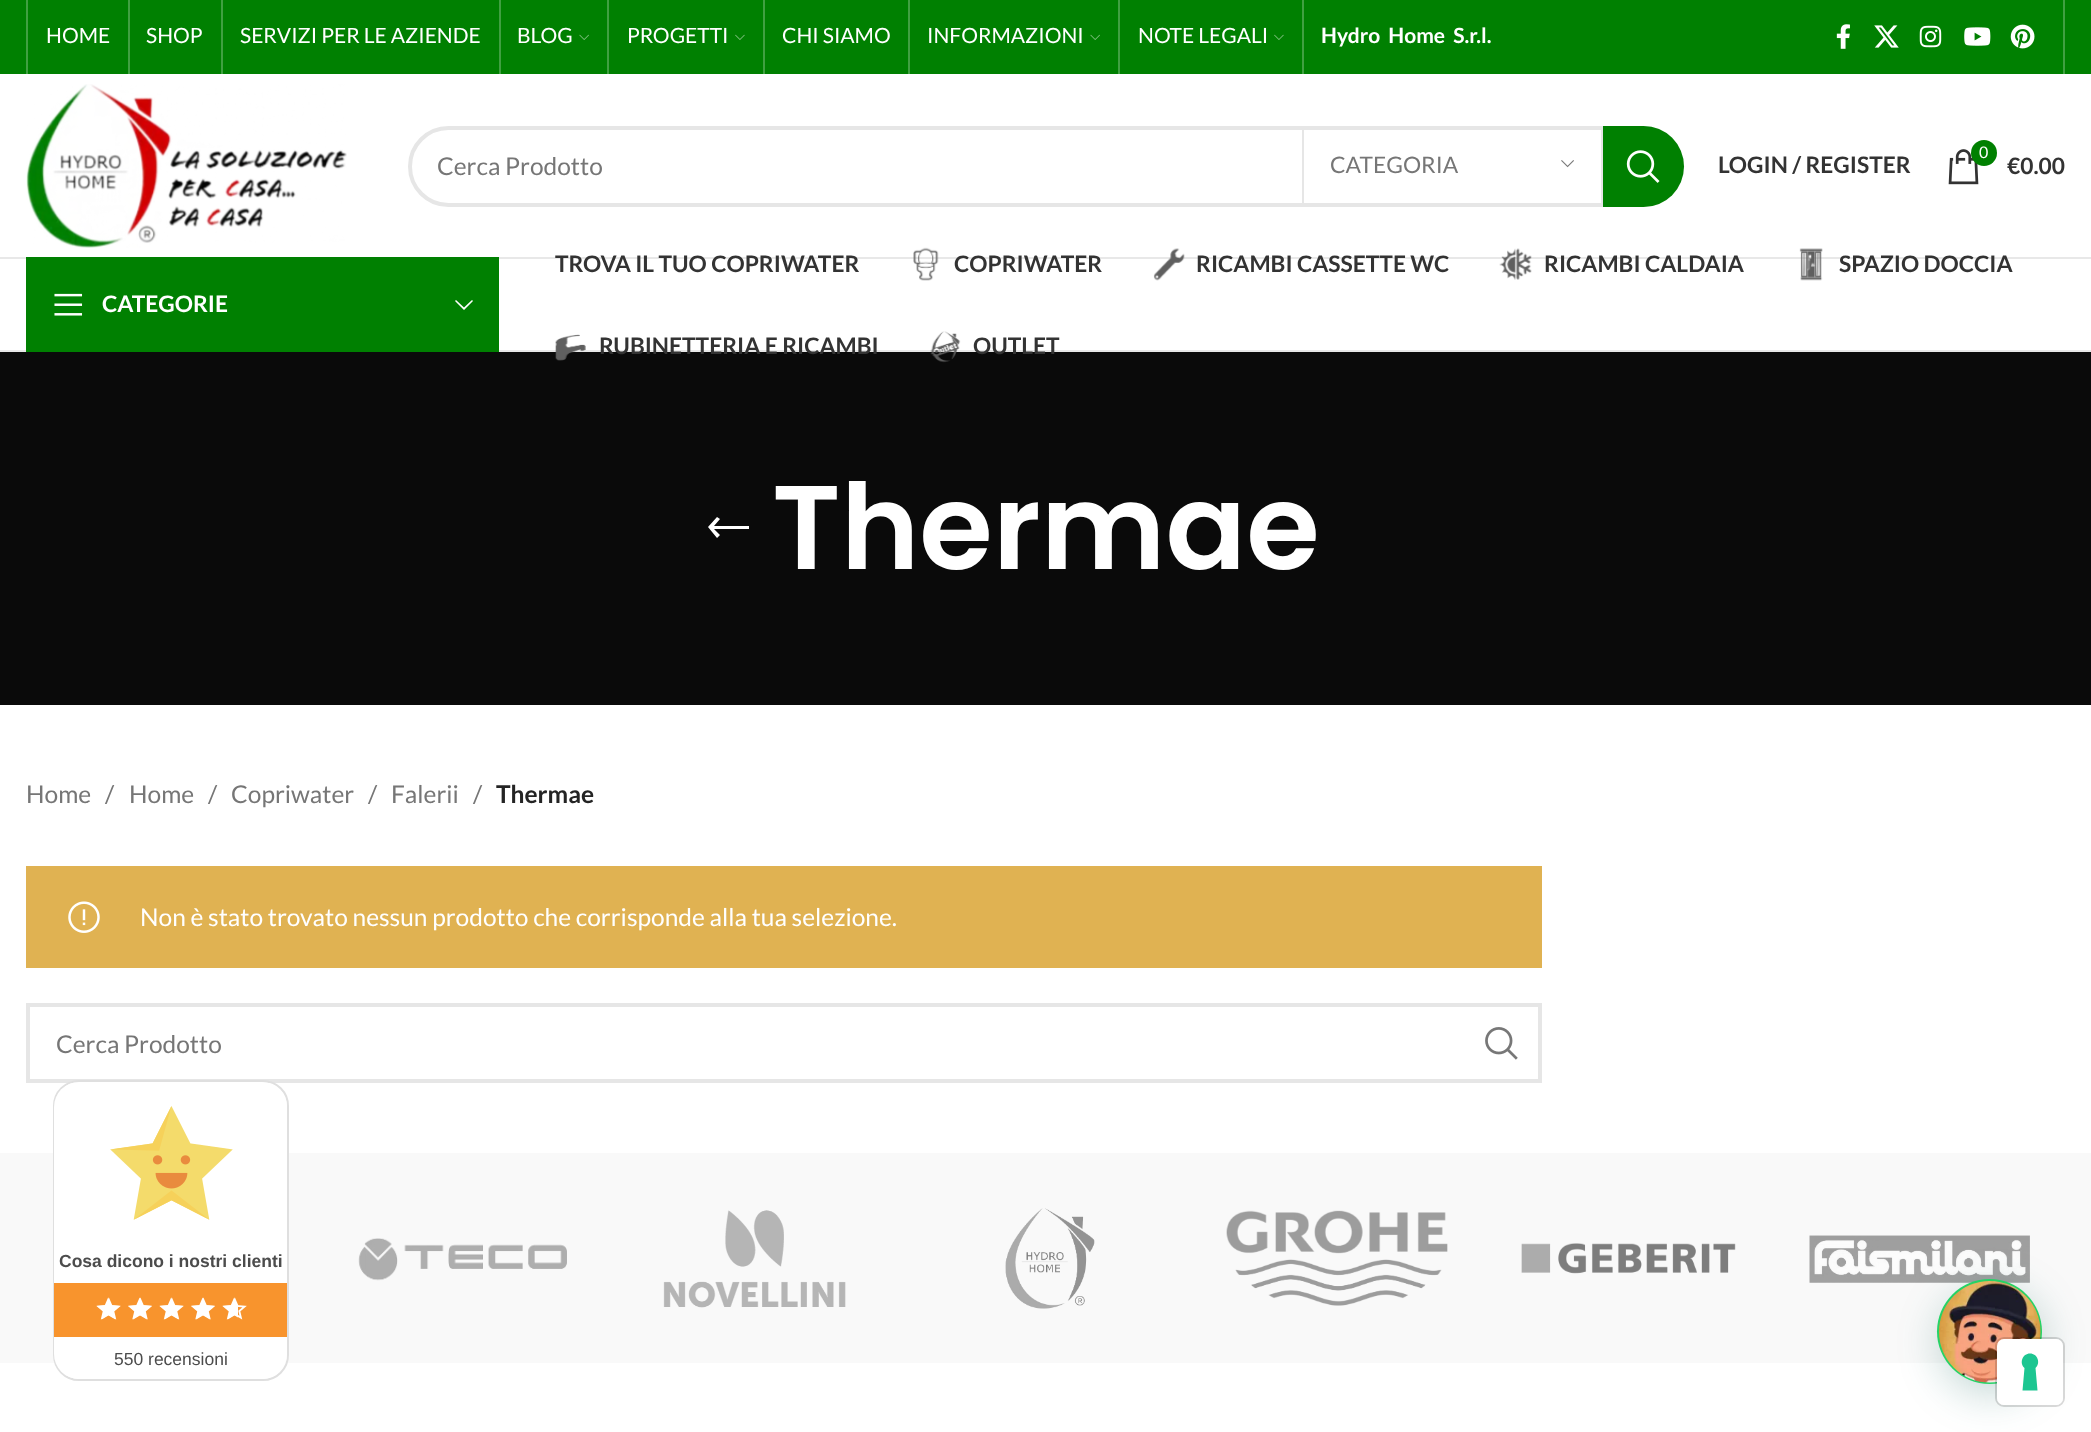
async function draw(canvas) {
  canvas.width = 2091
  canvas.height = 1432
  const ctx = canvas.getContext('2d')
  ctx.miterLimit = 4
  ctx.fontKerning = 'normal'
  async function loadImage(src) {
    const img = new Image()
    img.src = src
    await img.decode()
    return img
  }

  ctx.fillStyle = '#fff'
  ctx.fillRect(0, 0, 2091, 1432)
  ctx.fillStyle = '#008001'
  ctx.fillRect(0, 0, 2091, 74)
  ctx.fillStyle = '#40a041'
  ctx.fillRect(26, 0, 2, 74)
  ctx.font = '21px Lato'
  ctx.fillStyle = '#fff'
  ctx.fillText('HOME', 46, 43)
  ctx.fillStyle = '#40a041'
  ctx.fillRect(128, 0, 2, 74)
  ctx.fillStyle = '#fff'
  ctx.fillText('SHOP', 146, 43)
  ctx.fillStyle = '#40a041'
  ctx.fillRect(221, 0, 2, 74)
  ctx.fillStyle = '#fff'
  ctx.fillText('SERVIZI PER LE AZIENDE', 240, 43)
  ctx.fillStyle = '#40a041'
  ctx.fillRect(499, 0, 2, 74)
  ctx.fillStyle = '#fff'
  ctx.fillText('BLOG', 517, 43)
  ctx.drawImage(await loadImage('image0.png'), 579, 34, 10, 6)
  ctx.fillStyle = '#40a041'
  ctx.fillRect(607, 0, 2, 74)
  ctx.fillStyle = '#fff'
  ctx.fillText('PROGETTI', 627, 43)
  ctx.drawImage(await loadImage('image1.png'), 735, 34, 10, 6)
  ctx.fillStyle = '#40a041'
  ctx.fillRect(763, 0, 2, 74)
  ctx.fillStyle = '#fff'
  ctx.fillText('CHI SIAMO', 782, 43)
  ctx.fillStyle = '#40a041'
  ctx.fillRect(908, 0, 2, 74)
  ctx.fillStyle = '#fff'
  ctx.fillText('INFORMAZIONI', 927, 43)
  ctx.drawImage(await loadImage('image0.png'), 1090, 34, 10, 6)
  ctx.fillStyle = '#40a041'
  ctx.fillRect(1118, 0, 2, 74)
  ctx.fillStyle = '#fff'
  ctx.fillText('NOTE LEGALI', 1138, 43)
  ctx.drawImage(await loadImage('image1.png'), 1274, 34, 10, 6)
  ctx.fillStyle = '#40a041'
  ctx.fillRect(1302, 0, 2, 74)
  ctx.font = 'bold 21px Lato'
  ctx.fillStyle = '#fff'
  ctx.fillText('Hydro  Home  S.r.l.', 1321, 43)
  ctx.drawImage(await loadImage('image2.png'), 1836, 24, 14, 25)
  ctx.drawImage(await loadImage('image3.png'), 1874, 25, 25, 23)
  ctx.drawImage(await loadImage('image4.png'), 1919, 25, 23, 23)
  ctx.drawImage(await loadImage('image5.png'), 1964, 27, 27, 19)
  ctx.drawImage(await loadImage('image6.png'), 2010, 24, 25, 25)
  ctx.fillStyle = '#40a041'
  ctx.fillRect(2063, 0, 2, 74)
  ctx.fillStyle = '#e8e8e8'
  ctx.fillRect(0, 257, 2091, 2)
  ctx.drawImage(await loadImage('image7.png'), 26, 84, 321, 164)
  ctx.beginPath()
  ctx.roundRect(410, 128, 1272, 77, 38.5)
  ctx.strokeStyle = '#e6e6e6'
  ctx.lineWidth = 4
  ctx.stroke()
  ctx.font = '24.5px Lato'
  ctx.fillStyle = '#767676'
  ctx.fillText('Cerca Prodotto', 437, 175)
  ctx.fillStyle = '#e6e6e6'
  ctx.fillRect(1601, 130, 2, 73)
  ctx.fillRect(1302, 130, 2, 73)
  ctx.font = '22.75px Lato'
  ctx.fillStyle = '#767676'
  ctx.fillText('CATEGORIA', 1330, 173)
  ctx.drawImage(await loadImage('image8.png'), 1561, 160, 13, 8)
  ctx.fillStyle = '#008001'
  ctx.beginPath()
  ctx.roundRect(1603, 126, 81, 81, [0, 40.5, 40.5, 0])
  ctx.fill()
  ctx.drawImage(await loadImage('image9.png'), 1626, 150, 34, 33)
  ctx.font = 'bold 22.75px Lato'
  ctx.fillStyle = '#333'
  ctx.fillText('LOGIN / REGISTER', 1718, 173)
  ctx.drawImage(await loadImage('image10.png'), 1948, 149, 31, 36)
  ctx.fillStyle = '#008001'
  ctx.beginPath()
  ctx.arc(1984, 153, 13, 0, 2 * Math.PI)
  ctx.fill()
  ctx.font = '16px Lato'
  ctx.fillStyle = '#fff'
  ctx.fillText('0', 1979, 158)
  ctx.font = 'bold 22.75px Lato'
  ctx.fillStyle = '#333'
  ctx.fillText('€0.00', 2007, 174)
  ctx.fillStyle = '#e8e8e8'
  ctx.fillRect(0, 350, 2091, 2)
  ctx.fillStyle = '#008001'
  ctx.fillRect(26, 257, 473, 95)
  ctx.drawImage(await loadImage('image11.png'), 54, 293, 29, 23)
  ctx.fillStyle = '#fff'
  ctx.fillText('CATEGORIE', 102, 312)
  ctx.beginPath()
  ctx.moveTo(472, 300)
  ctx.lineTo(464, 307.5)
  ctx.lineTo(456, 300)
  ctx.lineTo(455, 301)
  ctx.lineTo(464, 310)
  ctx.lineTo(473, 301)
  ctx.closePath()
  ctx.fill()
  ctx.fillStyle = '#333'
  ctx.fillText('TROVA IL TUO COPRIWATER', 555, 272)
  ctx.drawImage(await loadImage('image12.png'), 913, 247, 26, 34)
  ctx.fillText('COPRIWATER', 954, 272)
  ctx.drawImage(await loadImage('image13.png'), 1153, 248, 32, 33)
  ctx.fillText('RICAMBI CASSETTE WC', 1196, 272)
  ctx.drawImage(await loadImage('image14.png'), 1499, 248, 33, 32)
  ctx.fillText('RICAMBI CALDAIA', 1544, 272)
  ctx.drawImage(await loadImage('image15.png'), 1799, 248, 24, 33)
  ctx.fillText('SPAZIO DOCCIA', 1839, 272)
  ctx.fillStyle = '#0a0a0a'
  ctx.fillRect(0, 352, 2091, 353)
  ctx.drawImage(await loadImage('image16.png'), 555, 334, 31, 27)
  ctx.fillStyle = '#333'
  ctx.fillText('RUBINETTERIA E RICAMBI', 599, 354)
  ctx.drawImage(await loadImage('image17.png'), 930, 331, 31, 32)
  ctx.fillText('OUTLET', 973, 354)
  ctx.fillStyle = '#fff'
  ctx.beginPath()
  ctx.moveTo(720, 535)
  ctx.lineTo(714, 529)
  ctx.lineTo(749, 529)
  ctx.lineTo(749, 526)
  ctx.lineTo(714, 526)
  ctx.lineTo(720, 519)
  ctx.lineTo(717, 517)
  ctx.lineTo(708, 527)
  ctx.lineTo(717, 538)
  ctx.closePath()
  ctx.fill()
  ctx.font = '600 119px Poppins'
  ctx.fillText('Thermae', 772, 569)
  ctx.font = '24.5px Lato'
  ctx.fillStyle = '#767676'
  ctx.fillText('Home', 26, 803)
  ctx.fillText('/', 105, 803)
  ctx.fillText('Home', 129, 803)
  ctx.fillText('/', 208, 803)
  ctx.fillText('Copriwater', 231, 803)
  ctx.fillText('/', 368, 803)
  ctx.fillText('Falerii', 391, 803)
  ctx.fillText('/', 473, 803)
  ctx.font = 'bold 24.5px Lato'
  ctx.fillStyle = '#242424'
  ctx.fillText('Thermae', 496, 803)
  ctx.fillStyle = '#e0b252'
  ctx.fillRect(26, 866, 1516, 102)
  ctx.drawImage(await loadImage('image18.png'), 68, 901, 32, 32)
  ctx.font = '24.5px Lato'
  ctx.fillStyle = '#fff'
  ctx.fillText('Non è stato trovato nessun prodotto che corrisponde alla tua selezione.', 140, 926)
  ctx.strokeRect(28, 1005, 1512, 76)
  ctx.fillStyle = '#767676'
  ctx.fillText('Cerca Prodotto', 56, 1053)
  ctx.drawImage(await loadImage('image19.png'), 1485, 1027, 33, 33)
  ctx.fillStyle = '#f9f9f9'
  ctx.fillRect(0, 1153, 2091, 210)
  ctx.drawImage(await loadImage('image20.png'), 358, 1238, 209, 43)
  ctx.drawImage(await loadImage('image21.png'), 663, 1210, 183, 98)
  ctx.drawImage(await loadImage('image22.png'), 1005, 1208, 90, 101)
  ctx.drawImage(await loadImage('image23.png'), 1226, 1210, 222, 96)
  ctx.drawImage(await loadImage('image24.png'), 1521, 1243, 215, 31)
  ctx.drawImage(await loadImage('image25.png'), 1809, 1235, 221, 48)
  ctx.beginPath()
  ctx.roundRect(54, 1081, 234, 299, 25)
  ctx.strokeStyle = '#dfdfdf'
  ctx.lineWidth = 2
  ctx.stroke()
  ctx.fillStyle = '#fff'
  ctx.beginPath()
  ctx.roundRect(54, 1082, 233, 201, [25, 25, 0, 0])
  ctx.fill()
  ctx.fillStyle = '#f8942d'
  ctx.fillRect(54, 1283, 233, 54)
  ctx.fillStyle = '#fff'
  ctx.beginPath()
  ctx.roundRect(54, 1337, 233, 42, [0, 0, 25, 25])
  ctx.fill()
  ctx.drawImage(await loadImage('image26.png'), 110, 1106, 123, 114)
  ctx.font = 'bold 17.5px Liberation Sans'
  ctx.fillStyle = '#4c4c4c'
  ctx.fillText('Cosa dicono i nostri clienti', 59, 1267)
  ctx.drawImage(await loadImage('image28.png'), 97, 1297, 24, 23)
  ctx.drawImage(await loadImage('image27.png'), 96, 1297, 24, 23)
  ctx.drawImage(await loadImage('image29.png'), 128, 1297, 24, 23)
  ctx.drawImage(await loadImage('image30.png'), 128, 1297, 24, 23)
  ctx.drawImage(await loadImage('image28.png'), 160, 1297, 24, 23)
  ctx.drawImage(await loadImage('image27.png'), 159, 1297, 24, 23)
  ctx.drawImage(await loadImage('image29.png'), 191, 1297, 24, 23)
  ctx.drawImage(await loadImage('image30.png'), 191, 1297, 24, 23)
  ctx.drawImage(await loadImage('image28.png'), 223, 1297, 24, 23)
  ctx.drawImage(await loadImage('image31.png'), 222, 1297, 16, 23)
  ctx.font = '17.5px Liberation Sans'
  ctx.fillText('550 recensioni', 114, 1365)
  ctx.fillStyle = '#075e543d'
  ctx.filter = 'blur(21px)'
  ctx.beginPath()
  ctx.roundRect(1939, 1290, 105, 105, 52.5)
  ctx.fill()
  ctx.filter = 'none'
  ctx.fillStyle = '#25d366'
  ctx.beginPath()
  ctx.arc(1989.5, 1331.5, 52.5, 0, 2 * Math.PI)
  ctx.fill()
  ctx.drawImage(await loadImage('image32.png'), 1939, 1281, 102, 102)
  ctx.beginPath()
  ctx.roundRect(1996, 1338, 68, 68, 8)
  ctx.strokeStyle = '#00000026'
  ctx.stroke()
  ctx.fillStyle = '#fff'
  ctx.beginPath()
  ctx.roundRect(1997, 1339, 66, 66, 7)
  ctx.fill()
  ctx.fillStyle = '#1cc691'
  ctx.beginPath()
  ctx.moveTo(2030, 1353.5)
  ctx.bezierCurveTo(2037.5, 1353.5, 2041, 1363, 2035.5, 1368)
  ctx.lineTo(2037.5, 1390.5)
  ctx.lineTo(2022.5, 1390.5)
  ctx.lineTo(2024.5, 1368)
  ctx.bezierCurveTo(2019, 1363, 2022.5, 1353.5, 2030, 1353.5)
  ctx.closePath()
  ctx.fill('evenodd')
}

draw(document.querySelector('canvas'))
